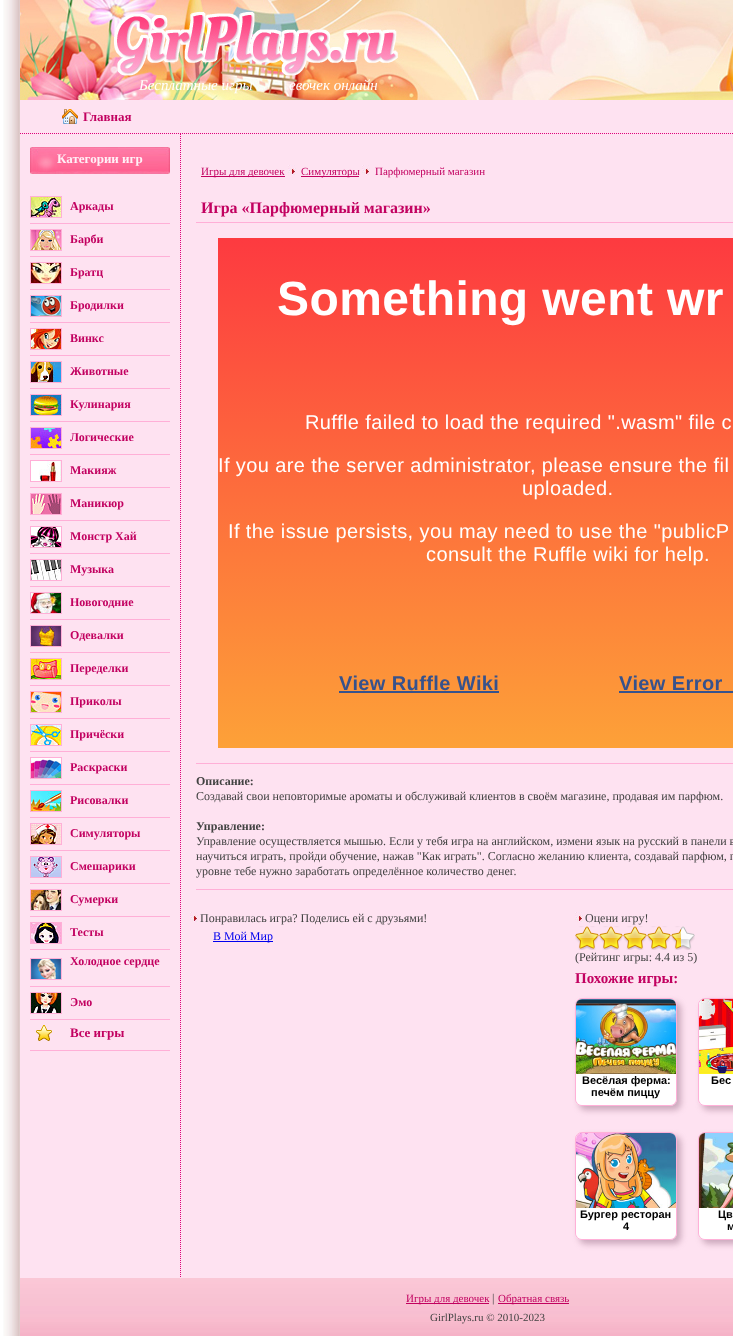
async function draw(canvas) {
  canvas.width = 733
  canvas.height = 1339
  const ctx = canvas.getContext('2d')
  ctx.miterLimit = 4
  ctx.fontKerning = 'normal'
  async function loadImage(src) {
    const img = new Image()
    img.src = src
    await img.decode()
    return img
  }
  let gradient

  ctx.fillStyle = '#fff'
  ctx.fillRect(0, 0, 733, 1339)
  ctx.drawImage(await loadImage('image0.png'), 3, 0, 17, 1336)
  ctx.drawImage(await loadImage('image1.png'), 20, 0, 713, 100)
  ctx.font = 'italic 15px Liberation Serif'
  ctx.fillText('Бесплатные игры', 139, 90)
  ctx.fillText('евочек онлайн', 289, 90)
  ctx.fillStyle = '#fee2f1'
  ctx.fillRect(20, 100, 713, 1178)
  ctx.beginPath()
  ctx.moveTo(20, 133.5)
  ctx.lineTo(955, 133.5)
  ctx.strokeStyle = '#df0079'
  ctx.setLineDash([1, 1])
  ctx.stroke()
  ctx.drawImage(await loadImage('image2.png'), 62, 109, 16, 15)
  ctx.font = 'bold 13px Liberation Serif'
  ctx.fillStyle = '#c20160'
  ctx.fillText('Главная', 83, 121)
  ctx.beginPath()
  ctx.moveTo(180.5, 134)
  ctx.lineTo(180.5, 1278)
  ctx.stroke()
  ctx.drawImage(await loadImage('image3.png'), 30, 147, 140, 27)
  ctx.fillStyle = '#fff0f6'
  ctx.fillText('Категории игр', 57, 163)
  ctx.fillStyle = '#ffafd7'
  ctx.fillRect(30, 223, 140, 1)
  ctx.strokeStyle = '#ffafd7'
  ctx.setLineDash([])
  ctx.strokeRect(30.5, 196.5, 31, 21)
  ctx.drawImage(await loadImage('image4.png'), 31, 197, 30, 20)
  ctx.font = 'bold 12px Liberation Serif'
  ctx.fillStyle = '#c20160'
  ctx.fillText('Аркады', 70, 210)
  ctx.fillStyle = '#ffafd7'
  ctx.fillRect(30, 256, 140, 1)
  ctx.strokeRect(30.5, 229.5, 31, 21)
  ctx.drawImage(await loadImage('image5.png'), 31, 230, 30, 20)
  ctx.fillStyle = '#c20160'
  ctx.fillText('Барби', 70, 243)
  ctx.fillStyle = '#ffafd7'
  ctx.fillRect(30, 289, 140, 1)
  ctx.strokeRect(30.5, 262.5, 31, 21)
  ctx.drawImage(await loadImage('image6.png'), 31, 263, 30, 20)
  ctx.fillStyle = '#c20160'
  ctx.fillText('Братц', 70, 276)
  ctx.fillStyle = '#ffafd7'
  ctx.fillRect(30, 322, 140, 1)
  ctx.strokeRect(30.5, 295.5, 31, 21)
  ctx.drawImage(await loadImage('image7.png'), 31, 296, 30, 20)
  ctx.fillStyle = '#c20160'
  ctx.fillText('Бродилки', 70, 309)
  ctx.fillStyle = '#ffafd7'
  ctx.fillRect(30, 355, 140, 1)
  ctx.strokeRect(30.5, 328.5, 31, 21)
  ctx.drawImage(await loadImage('image8.png'), 31, 329, 30, 20)
  ctx.fillStyle = '#c20160'
  ctx.fillText('Винкс', 70, 342)
  ctx.fillStyle = '#ffafd7'
  ctx.fillRect(30, 388, 140, 1)
  ctx.strokeRect(30.5, 361.5, 31, 21)
  ctx.drawImage(await loadImage('image9.png'), 31, 362, 30, 20)
  ctx.fillStyle = '#c20160'
  ctx.fillText('Животные', 70, 375)
  ctx.fillStyle = '#ffafd7'
  ctx.fillRect(30, 421, 140, 1)
  ctx.strokeRect(30.5, 394.5, 31, 21)
  ctx.drawImage(await loadImage('image10.png'), 31, 395, 30, 20)
  ctx.fillStyle = '#c20160'
  ctx.fillText('Кулинария', 70, 408)
  ctx.fillStyle = '#ffafd7'
  ctx.fillRect(30, 454, 140, 1)
  ctx.strokeRect(30.5, 427.5, 31, 21)
  ctx.drawImage(await loadImage('image11.png'), 31, 428, 30, 20)
  ctx.fillStyle = '#c20160'
  ctx.fillText('Логические', 70, 441)
  ctx.fillStyle = '#ffafd7'
  ctx.fillRect(30, 487, 140, 1)
  ctx.strokeRect(30.5, 460.5, 31, 21)
  ctx.drawImage(await loadImage('image12.png'), 31, 461, 30, 20)
  ctx.fillStyle = '#c20160'
  ctx.fillText('Макияж', 70, 474)
  ctx.fillStyle = '#ffafd7'
  ctx.fillRect(30, 520, 140, 1)
  ctx.strokeRect(30.5, 493.5, 31, 21)
  ctx.drawImage(await loadImage('image13.png'), 31, 494, 30, 20)
  ctx.fillStyle = '#c20160'
  ctx.fillText('Маникюр', 70, 507)
  ctx.fillStyle = '#ffafd7'
  ctx.fillRect(30, 553, 140, 1)
  ctx.strokeRect(30.5, 526.5, 31, 21)
  ctx.drawImage(await loadImage('image14.png'), 31, 527, 30, 20)
  ctx.fillStyle = '#c20160'
  ctx.fillText('Монстр Хай', 70, 540)
  ctx.fillStyle = '#ffafd7'
  ctx.fillRect(30, 586, 140, 1)
  ctx.strokeRect(30.5, 559.5, 31, 21)
  ctx.drawImage(await loadImage('image15.png'), 31, 560, 30, 20)
  ctx.fillStyle = '#c20160'
  ctx.fillText('Музыка', 70, 573)
  ctx.fillStyle = '#ffafd7'
  ctx.fillRect(30, 619, 140, 1)
  ctx.strokeRect(30.5, 592.5, 31, 21)
  ctx.drawImage(await loadImage('image16.png'), 31, 593, 30, 20)
  ctx.fillStyle = '#c20160'
  ctx.fillText('Новогодние', 70, 606)
  ctx.fillStyle = '#ffafd7'
  ctx.fillRect(30, 652, 140, 1)
  ctx.strokeRect(30.5, 625.5, 31, 21)
  ctx.drawImage(await loadImage('image17.png'), 31, 626, 30, 20)
  ctx.fillStyle = '#c20160'
  ctx.fillText('Одевалки', 70, 639)
  ctx.fillStyle = '#ffafd7'
  ctx.fillRect(30, 685, 140, 1)
  ctx.strokeRect(30.5, 658.5, 31, 21)
  ctx.drawImage(await loadImage('image18.png'), 31, 659, 30, 20)
  ctx.fillStyle = '#c20160'
  ctx.fillText('Переделки', 70, 672)
  ctx.fillStyle = '#ffafd7'
  ctx.fillRect(30, 718, 140, 1)
  ctx.strokeRect(30.5, 691.5, 31, 21)
  ctx.drawImage(await loadImage('image19.png'), 31, 692, 30, 20)
  ctx.fillStyle = '#c20160'
  ctx.fillText('Приколы', 70, 705)
  ctx.fillStyle = '#ffafd7'
  ctx.fillRect(30, 751, 140, 1)
  ctx.strokeRect(30.5, 724.5, 31, 21)
  ctx.drawImage(await loadImage('image20.png'), 31, 725, 30, 20)
  ctx.fillStyle = '#c20160'
  ctx.fillText('Причёски', 70, 738)
  ctx.fillStyle = '#ffafd7'
  ctx.fillRect(30, 784, 140, 1)
  ctx.strokeRect(30.5, 757.5, 31, 21)
  ctx.drawImage(await loadImage('image21.png'), 31, 758, 30, 20)
  ctx.fillStyle = '#c20160'
  ctx.fillText('Раскраски', 70, 771)
  ctx.fillStyle = '#ffafd7'
  ctx.fillRect(30, 817, 140, 1)
  ctx.strokeRect(30.5, 790.5, 31, 21)
  ctx.drawImage(await loadImage('image22.png'), 31, 791, 30, 20)
  ctx.fillStyle = '#c20160'
  ctx.fillText('Рисовалки', 70, 804)
  ctx.fillStyle = '#ffafd7'
  ctx.fillRect(30, 850, 140, 1)
  ctx.strokeRect(30.5, 823.5, 31, 21)
  ctx.drawImage(await loadImage('image23.png'), 31, 824, 30, 20)
  ctx.fillStyle = '#c20160'
  ctx.fillText('Симуляторы', 70, 837)
  ctx.fillStyle = '#ffafd7'
  ctx.fillRect(30, 883, 140, 1)
  ctx.strokeRect(30.5, 856.5, 31, 21)
  ctx.drawImage(await loadImage('image24.png'), 31, 857, 30, 20)
  ctx.fillStyle = '#c20160'
  ctx.fillText('Смешарики', 70, 870)
  ctx.fillStyle = '#ffafd7'
  ctx.fillRect(30, 916, 140, 1)
  ctx.strokeRect(30.5, 889.5, 31, 21)
  ctx.drawImage(await loadImage('image25.png'), 31, 890, 30, 20)
  ctx.fillStyle = '#c20160'
  ctx.fillText('Сумерки', 70, 903)
  ctx.fillStyle = '#ffafd7'
  ctx.fillRect(30, 949, 140, 1)
  ctx.strokeRect(30.5, 922.5, 31, 21)
  ctx.drawImage(await loadImage('image26.png'), 31, 923, 30, 20)
  ctx.fillStyle = '#c20160'
  ctx.fillText('Тесты', 70, 936)
  ctx.fillStyle = '#ffafd7'
  ctx.fillRect(30, 986, 140, 1)
  ctx.strokeRect(30.5, 958.5, 31, 21)
  ctx.fillStyle = '#c20160'
  ctx.fillText('Холодное сердце', 70, 965)
  ctx.drawImage(await loadImage('image27.png'), 31, 959, 30, 20)
  ctx.fillStyle = '#ffafd7'
  ctx.fillRect(30, 1019, 140, 1)
  ctx.strokeRect(30.5, 992.5, 31, 21)
  ctx.drawImage(await loadImage('image28.png'), 31, 993, 30, 20)
  ctx.fillStyle = '#c20160'
  ctx.fillText('Эмо', 70, 1006)
  ctx.fillStyle = '#ffafd7'
  ctx.fillRect(30, 1050, 140, 1)
  ctx.drawImage(await loadImage('image29.png'), 36, 1025, 16, 16)
  ctx.font = 'bold 13px Liberation Serif'
  ctx.fillStyle = '#c20160'
  ctx.fillText('Все игры', 70, 1037)
  ctx.fillRect(201, 176, 84, 1)
  ctx.font = '11px Liberation Serif'
  ctx.fillText('Игры для девочек', 201, 175)
  ctx.drawImage(await loadImage('image30.png'), 288, 165, 8, 10)
  ctx.fillRect(301, 176, 58, 1)
  ctx.fillText('Симуляторы', 301, 175)
  ctx.drawImage(await loadImage('image30.png'), 362, 165, 8, 10)
  ctx.fillText('Парфюмерный магазин', 375, 175)
  ctx.fillStyle = '#ffafd7'
  ctx.fillRect(196, 222, 537, 1)
  ctx.font = 'bold 16px Liberation Serif'
  ctx.fillStyle = '#c20160'
  ctx.fillText('Игра «Парфюмерный магазин»', 201, 213)
  gradient = ctx.createLinearGradient(568, 238, 568, 748)
  gradient.addColorStop(0, '#fd3a40')
  gradient.addColorStop(1, '#fda138')
  ctx.fillStyle = gradient
  ctx.fillRect(218, 238, 515, 510)
  ctx.letterSpacing = '0.4px'
  ctx.font = 'bold 48px Liberation Sans'
  ctx.fillStyle = '#fff'
  ctx.fillText('Something went wr', 277, 315)
  ctx.font = '20px Liberation Sans'
  ctx.fillText('Ruffle failed to load the required ".wasm" file c', 305, 429)
  ctx.fillText('If you are the server administrator, please ensure the fil', 218, 472)
  ctx.fillText('uploaded.', 522, 495)
  ctx.fillText('If the issue persists, you may need to use the "publicP', 228, 538)
  ctx.fillText('consult the Ruffle wiki for help.', 426, 561)
  ctx.font = 'bold 20px Liberation Sans'
  ctx.fillStyle = '#37528c'
  ctx.fillText('View Ruffle Wiki', 339, 690)
  ctx.fillRect(339, 691, 160, 2)
  ctx.fillText('View Error', 619, 690)
  ctx.fillRect(619, 691, 114, 2)
  ctx.fillStyle = '#ffafd7'
  ctx.fillRect(196, 763, 537, 1)
  ctx.fillRect(196, 889, 537, 1)
  ctx.letterSpacing = '0px'
  ctx.font = 'bold 12px Liberation Serif'
  ctx.fillStyle = '#424242'
  ctx.fillText('Описание:', 196, 785)
  ctx.font = '12px Liberation Serif'
  ctx.fillText('Создавай свои неповторимые ароматы и обслуживай клиентов в своём магазине, продавая им парфюм.', 196, 800)
  ctx.font = 'bold 12px Liberation Serif'
  ctx.fillText('Управление:', 196, 830)
  ctx.font = '12px Liberation Serif'
  ctx.fillText('Управление осуществляется мышью. Если у тебя игра на английском, измени язык на русский в панели в', 196, 845)
  ctx.fillText('научиться играть, пройди обучение, нажав "Как играть". Согласно желанию клиента, создавай парфюм, п', 196, 860)
  ctx.fillText('уровне тебе нужно заработать определённое количество денег.', 196, 875)
  ctx.drawImage(await loadImage('image30.png'), 190, 912, 8, 10)
  ctx.fillText('Понравилась игра? Поделись ей с друзьями!', 200, 922)
  ctx.fillStyle = '#00e'
  ctx.fillRect(213, 941, 60, 1)
  ctx.fillText('В Мой Мир', 213, 940)
  ctx.drawImage(await loadImage('image30.png'), 575, 912, 8, 10)
  ctx.fillStyle = '#424242'
  ctx.fillText('Оцени игру!', 585, 922)
  ctx.drawImage(await loadImage('image31.png'), 575, 926, 106, 24)
  ctx.drawImage(await loadImage('image32.png'), 681, 926, 14, 24)
  ctx.fillText('(Рейтинг игры: 4.4 из 5)', 575, 961)
  ctx.font = 'bold 15px Liberation Serif'
  ctx.fillStyle = '#c20160'
  ctx.fillText('Похожие игры:', 575, 983)
  ctx.save()
  ctx.beginPath()
  ctx.moveTo(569, 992)
  ctx.lineTo(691, 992)
  ctx.lineTo(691, 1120)
  ctx.lineTo(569, 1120)
  ctx.closePath()
  ctx.moveTo(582, 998)
  ctx.lineTo(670, 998)
  ctx.bezierCurveTo(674, 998, 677, 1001, 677, 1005)
  ctx.lineTo(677, 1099)
  ctx.bezierCurveTo(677, 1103, 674, 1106, 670, 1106)
  ctx.lineTo(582, 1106)
  ctx.bezierCurveTo(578, 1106, 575, 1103, 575, 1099)
  ctx.lineTo(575, 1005)
  ctx.bezierCurveTo(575, 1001, 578, 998, 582, 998)
  ctx.closePath()
  ctx.clip('evenodd')
  ctx.fillStyle = '#895c776e'
  ctx.filter = 'blur(3px)'
  ctx.beginPath()
  ctx.roundRect(579, 1002, 102, 108, 7)
  ctx.fill()
  ctx.filter = 'none'
  ctx.restore()
  ctx.beginPath()
  ctx.roundRect(575.5, 998.5, 101, 107, 6.5)
  ctx.strokeStyle = '#ffb0d8'
  ctx.stroke()
  ctx.fillStyle = '#fff'
  ctx.beginPath()
  ctx.roundRect(576, 999, 100, 106, 6)
  ctx.fill()
  ctx.drawImage(await loadImage('image33.png'), 576, 999, 100, 75)
  ctx.font = 'bold 11px Liberation Sans'
  ctx.fillStyle = '#000'
  ctx.fillText('Весёлая ферма:', 582, 1084)
  ctx.fillText('печём пиццу', 591, 1096)
  ctx.save()
  ctx.beginPath()
  ctx.moveTo(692, 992)
  ctx.lineTo(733, 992)
  ctx.lineTo(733, 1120)
  ctx.lineTo(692, 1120)
  ctx.closePath()
  ctx.moveTo(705, 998)
  ctx.lineTo(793, 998)
  ctx.bezierCurveTo(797, 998, 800, 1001, 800, 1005)
  ctx.lineTo(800, 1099)
  ctx.bezierCurveTo(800, 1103, 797, 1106, 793, 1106)
  ctx.lineTo(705, 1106)
  ctx.bezierCurveTo(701, 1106, 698, 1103, 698, 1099)
  ctx.lineTo(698, 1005)
  ctx.bezierCurveTo(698, 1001, 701, 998, 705, 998)
  ctx.closePath()
  ctx.clip('evenodd')
  ctx.fillStyle = '#895c776e'
  ctx.filter = 'blur(3px)'
  ctx.beginPath()
  ctx.roundRect(702, 1002, 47, 108, 7)
  ctx.fill()
  ctx.filter = 'none'
  ctx.restore()
  ctx.beginPath()
  ctx.roundRect(698.5, 998.5, 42, 107, 6.5)
  ctx.stroke()
  ctx.fillStyle = '#fff'
  ctx.beginPath()
  ctx.roundRect(699, 999, 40, 106, 6)
  ctx.fill()
  ctx.drawImage(await loadImage('image34.png'), 699, 999, 34, 75)
  ctx.fillStyle = '#000'
  ctx.fillText('Бес', 711, 1084)
  ctx.save()
  ctx.beginPath()
  ctx.moveTo(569, 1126)
  ctx.lineTo(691, 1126)
  ctx.lineTo(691, 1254)
  ctx.lineTo(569, 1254)
  ctx.closePath()
  ctx.moveTo(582, 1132)
  ctx.lineTo(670, 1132)
  ctx.bezierCurveTo(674, 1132, 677, 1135, 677, 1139)
  ctx.lineTo(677, 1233)
  ctx.bezierCurveTo(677, 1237, 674, 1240, 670, 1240)
  ctx.lineTo(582, 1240)
  ctx.bezierCurveTo(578, 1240, 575, 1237, 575, 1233)
  ctx.lineTo(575, 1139)
  ctx.bezierCurveTo(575, 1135, 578, 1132, 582, 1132)
  ctx.closePath()
  ctx.clip('evenodd')
  ctx.fillStyle = '#895c776e'
  ctx.filter = 'blur(3px)'
  ctx.beginPath()
  ctx.roundRect(579, 1136, 102, 108, 7)
  ctx.fill()
  ctx.filter = 'none'
  ctx.restore()
  ctx.beginPath()
  ctx.roundRect(575.5, 1132.5, 101, 107, 6.5)
  ctx.stroke()
  ctx.fillStyle = '#fff'
  ctx.beginPath()
  ctx.roundRect(576, 1133, 100, 106, 6)
  ctx.fill()
  ctx.drawImage(await loadImage('image35.png'), 576, 1133, 100, 75)
  ctx.fillStyle = '#000'
  ctx.fillText('Бургер ресторан', 580, 1218)
  ctx.fillText('4', 623, 1230)
  ctx.save()
  ctx.beginPath()
  ctx.moveTo(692, 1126)
  ctx.lineTo(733, 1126)
  ctx.lineTo(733, 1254)
  ctx.lineTo(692, 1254)
  ctx.closePath()
  ctx.moveTo(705, 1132)
  ctx.lineTo(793, 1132)
  ctx.bezierCurveTo(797, 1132, 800, 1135, 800, 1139)
  ctx.lineTo(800, 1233)
  ctx.bezierCurveTo(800, 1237, 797, 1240, 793, 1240)
  ctx.lineTo(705, 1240)
  ctx.bezierCurveTo(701, 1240, 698, 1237, 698, 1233)
  ctx.lineTo(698, 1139)
  ctx.bezierCurveTo(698, 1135, 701, 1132, 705, 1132)
  ctx.closePath()
  ctx.clip('evenodd')
  ctx.fillStyle = '#895c776e'
  ctx.filter = 'blur(3px)'
  ctx.beginPath()
  ctx.roundRect(702, 1136, 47, 108, 7)
  ctx.fill()
  ctx.filter = 'none'
  ctx.restore()
  ctx.beginPath()
  ctx.roundRect(698.5, 1132.5, 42, 107, 6.5)
  ctx.stroke()
  ctx.fillStyle = '#fff'
  ctx.beginPath()
  ctx.roundRect(699, 1133, 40, 106, 6)
  ctx.fill()
  ctx.drawImage(await loadImage('image36.png'), 699, 1133, 34, 75)
  ctx.fillStyle = '#000'
  ctx.fillText('Цв', 718, 1218)
  ctx.fillText('м', 727, 1230)
  ctx.drawImage(await loadImage('image37.png'), 20, 1278, 713, 58)
  ctx.fillStyle = '#c20160'
  ctx.fillRect(406, 1303, 83, 1)
  ctx.font = '11px Liberation Serif'
  ctx.fillText('Игры для девочек', 406, 1302)
  ctx.font = '12px Liberation Serif'
  ctx.fillStyle = '#424242'
  ctx.fillText('|', 492, 1302)
  ctx.fillStyle = '#c20160'
  ctx.fillRect(498, 1303, 71, 1)
  ctx.font = '11px Liberation Serif'
  ctx.fillText('Обратная связь', 498, 1302)
  ctx.fillStyle = '#424242'
  ctx.fillText('GirlPlays.ru © 2010-2023', 430, 1321)
}

draw(document.querySelector('canvas'))
